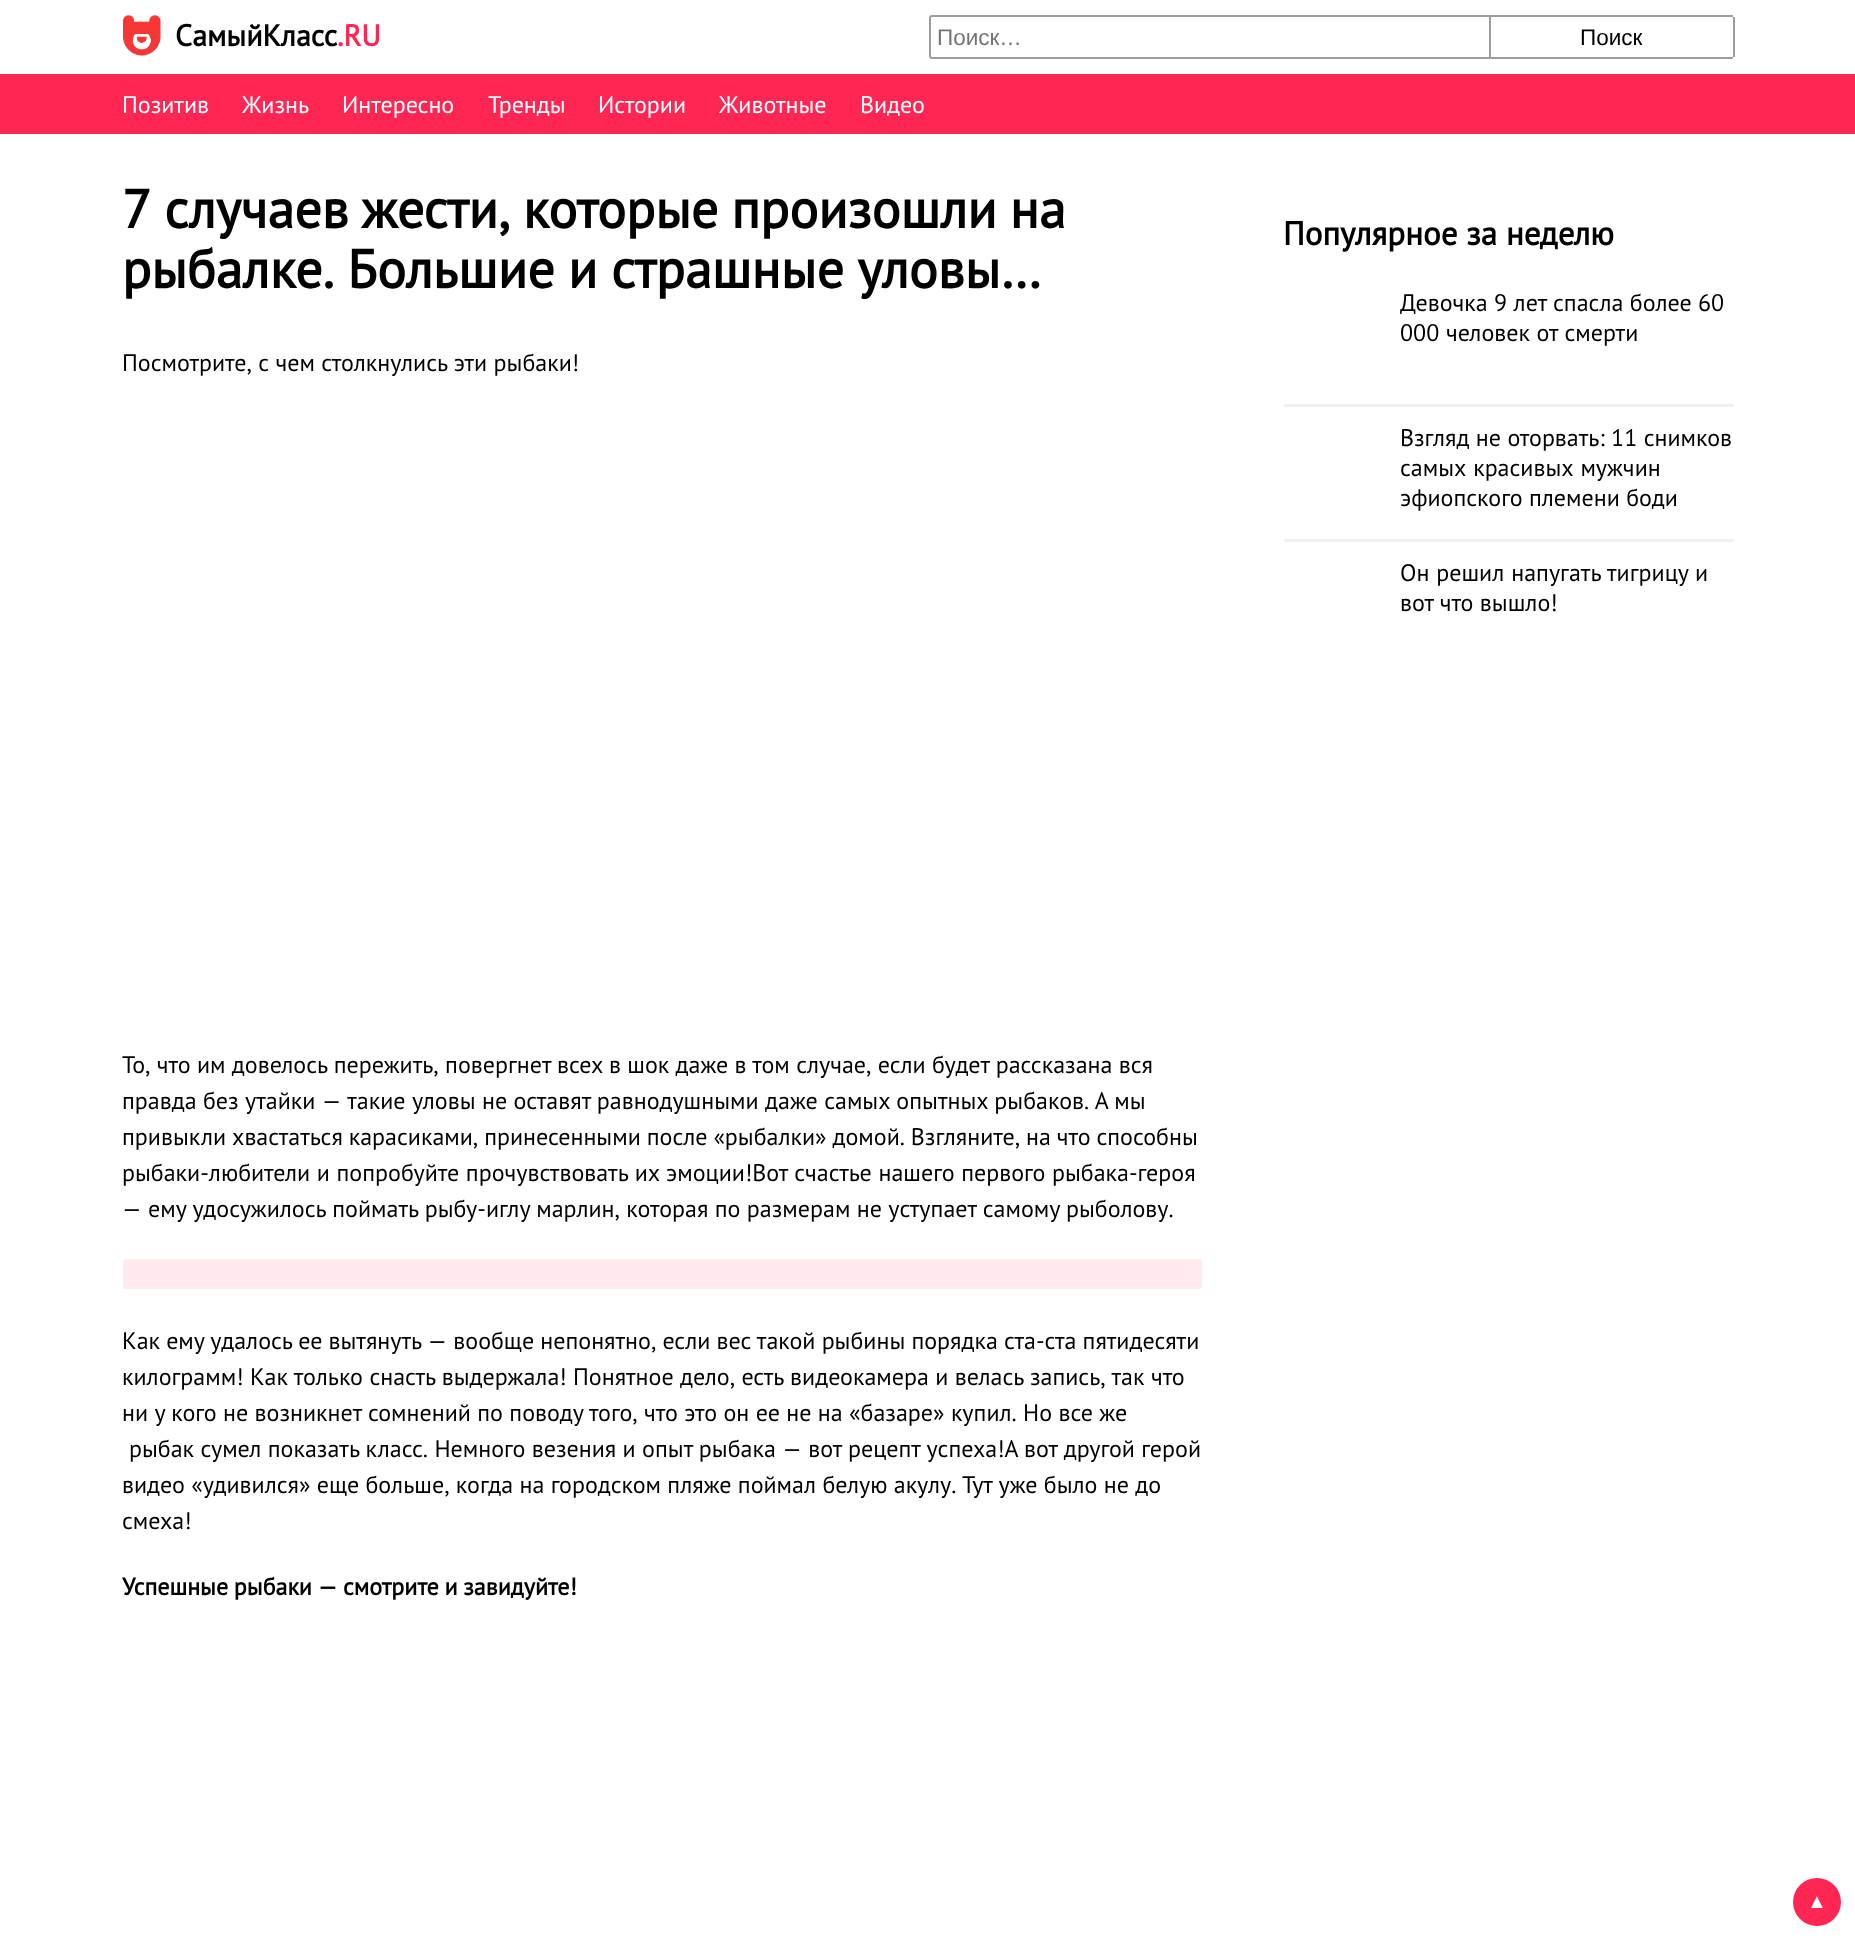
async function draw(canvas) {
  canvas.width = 1855
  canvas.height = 1941
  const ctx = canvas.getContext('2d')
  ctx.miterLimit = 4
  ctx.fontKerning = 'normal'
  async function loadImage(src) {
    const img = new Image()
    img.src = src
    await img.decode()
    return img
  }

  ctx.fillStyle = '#fff'
  ctx.fillRect(0, 0, 1855, 1941)
  ctx.drawImage(await loadImage('image0.png'), 123, 15, 38, 41)
  ctx.font = 'bold 30px PT Sans'
  ctx.fillStyle = '#000'
  ctx.fillText('СамыйКласс', 175, 46)
  ctx.fillStyle = '#ff2654'
  ctx.fillText('.RU', 337, 46)
  ctx.beginPath()
  ctx.roundRect(930, 16, 560, 42, [2, 0, 0, 2])
  ctx.strokeStyle = '#9e9e9e'
  ctx.lineWidth = 2
  ctx.stroke()
  ctx.font = '22.5px Liberation Sans'
  ctx.fillStyle = '#757575'
  ctx.fillText('Поиск…', 937, 45)
  ctx.fillStyle = '#9e9e9e'
  ctx.fillRect(1491, 15, 242, 2)
  ctx.fillRect(1733, 17, 2, 40)
  ctx.fillRect(1491, 57, 242, 2)
  ctx.fillStyle = '#000'
  ctx.fillText('Поиск', 1580, 45)
  ctx.fillStyle = '#ff2654'
  ctx.fillRect(0, 74, 1855, 60)
  ctx.font = '24px PT Sans'
  ctx.fillStyle = '#fff'
  ctx.fillText('Позитив', 122, 113)
  ctx.fillText('Жизнь', 242, 113)
  ctx.fillText('Интересно', 342, 113)
  ctx.fillText('Тренды', 488, 113)
  ctx.fillText('Истории', 598, 113)
  ctx.fillText('Животные', 719, 113)
  ctx.fillText('Видео', 860, 113)
  ctx.wordSpacing = '-1.5px'
  ctx.font = 'bold 54px PT Sans'
  ctx.fillStyle = '#000'
  ctx.fillText('7 случаев жести, которые произошли на', 122, 228)
  ctx.wordSpacing = '-1px'
  ctx.fillText('рыбалке. Большие и страшные уловы…', 122, 288)
  ctx.wordSpacing = '0px'
  ctx.font = '24px PT Sans'
  ctx.fillText('Посмотрите, с чем столкнулись эти рыбаки!', 122, 371)
  ctx.wordSpacing = '-0.1px'
  ctx.fillText('То, что им довелось пережить, повергнет всех в шок даже в том случае, если будет рассказана вся', 122, 1073)
  ctx.wordSpacing = '0px'
  ctx.fillText('правда без утайки — такие уловы не оставят равнодушными даже самых опытных рыбаков. А мы', 122, 1109)
  ctx.wordSpacing = '-0.5px'
  ctx.fillText('привыкли хвастаться карасиками, принесенными после «рыбалки» домой. Взгляните, на что способны', 122, 1145)
  ctx.wordSpacing = '0.25px'
  ctx.fillText('рыбаки-любители и попробуйте прочувствовать их эмоции!Вот счастье нашего первого рыбака-героя', 122, 1181)
  ctx.wordSpacing = '0px'
  ctx.fillText('— ему удосужилось поймать рыбу-иглу марлин, которая по размерам не уступает самому рыболову.', 122, 1217)
  ctx.fillStyle = '#ffebee'
  ctx.beginPath()
  ctx.roundRect(123, 1259, 1079, 30, 3)
  ctx.fill()
  ctx.wordSpacing = '-0.25px'
  ctx.fillStyle = '#000'
  ctx.fillText('Как ему удалось ее вытянуть — вообще непонятно, если вес такой рыбины порядка ста-ста пятидесяти', 122, 1349)
  ctx.wordSpacing = '0px'
  ctx.fillText('килограмм! Как только снасть выдержала! Понятное дело, есть видеокамера и велась запись, так что', 122, 1385)
  ctx.fillText('ни у кого не возникнет сомнений по поводу того, что это он ее не на «базаре» купил. Но все же', 122, 1421)
  ctx.fillText('рыбак сумел показать класс. Немного везения и опыт рыбака — вот рецепт успеха!А вот другой герой', 129, 1457)
  ctx.wordSpacing = '-0.1px'
  ctx.fillText('видео «удивился» еще больше, когда на городском пляже поймал белую акулу. Тут уже было не до', 122, 1493)
  ctx.wordSpacing = '0px'
  ctx.fillText('смеха!', 122, 1529)
  ctx.wordSpacing = '-0.75px'
  ctx.font = 'bold 24px PT Sans'
  ctx.fillText('Успешные рыбаки — смотрите и завидуйте!', 122, 1595)
  ctx.wordSpacing = '0px'
  ctx.font = 'bold 33px PT Sans'
  ctx.fillText('Популярное за неделю', 1283, 245)
  ctx.fillStyle = '#f1f1f1'
  ctx.fillRect(1284, 404, 450, 3)
  ctx.font = '24px PT Sans'
  ctx.fillStyle = '#000'
  ctx.fillText('Девочка 9 лет спасла более 60', 1400, 311)
  ctx.wordSpacing = '0.25px'
  ctx.fillText('000 человек от смерти', 1400, 341)
  ctx.fillStyle = '#f1f1f1'
  ctx.fillRect(1284, 539, 450, 3)
  ctx.wordSpacing = '0px'
  ctx.fillStyle = '#000'
  ctx.fillText('Взгляд не оторвать: 11 снимков', 1400, 446)
  ctx.wordSpacing = '1px'
  ctx.fillText('самых красивых мужчин', 1400, 476)
  ctx.wordSpacing = '0px'
  ctx.fillText('эфиопского племени боди', 1400, 506)
  ctx.wordSpacing = '0.5px'
  ctx.fillText('Он решил напугать тигрицу и', 1400, 581)
  ctx.wordSpacing = '0px'
  ctx.fillText('вот что вышло!', 1400, 611)
  ctx.fillStyle = '#ff2654'
  ctx.beginPath()
  ctx.arc(1817, 1902, 24, 0, 2 * Math.PI)
  ctx.fill()
  ctx.font = '20px Liberation Sans'
  ctx.fillStyle = '#fff'
  ctx.fillText('▲', 1807, 1908)
}

draw(document.querySelector('canvas'))
